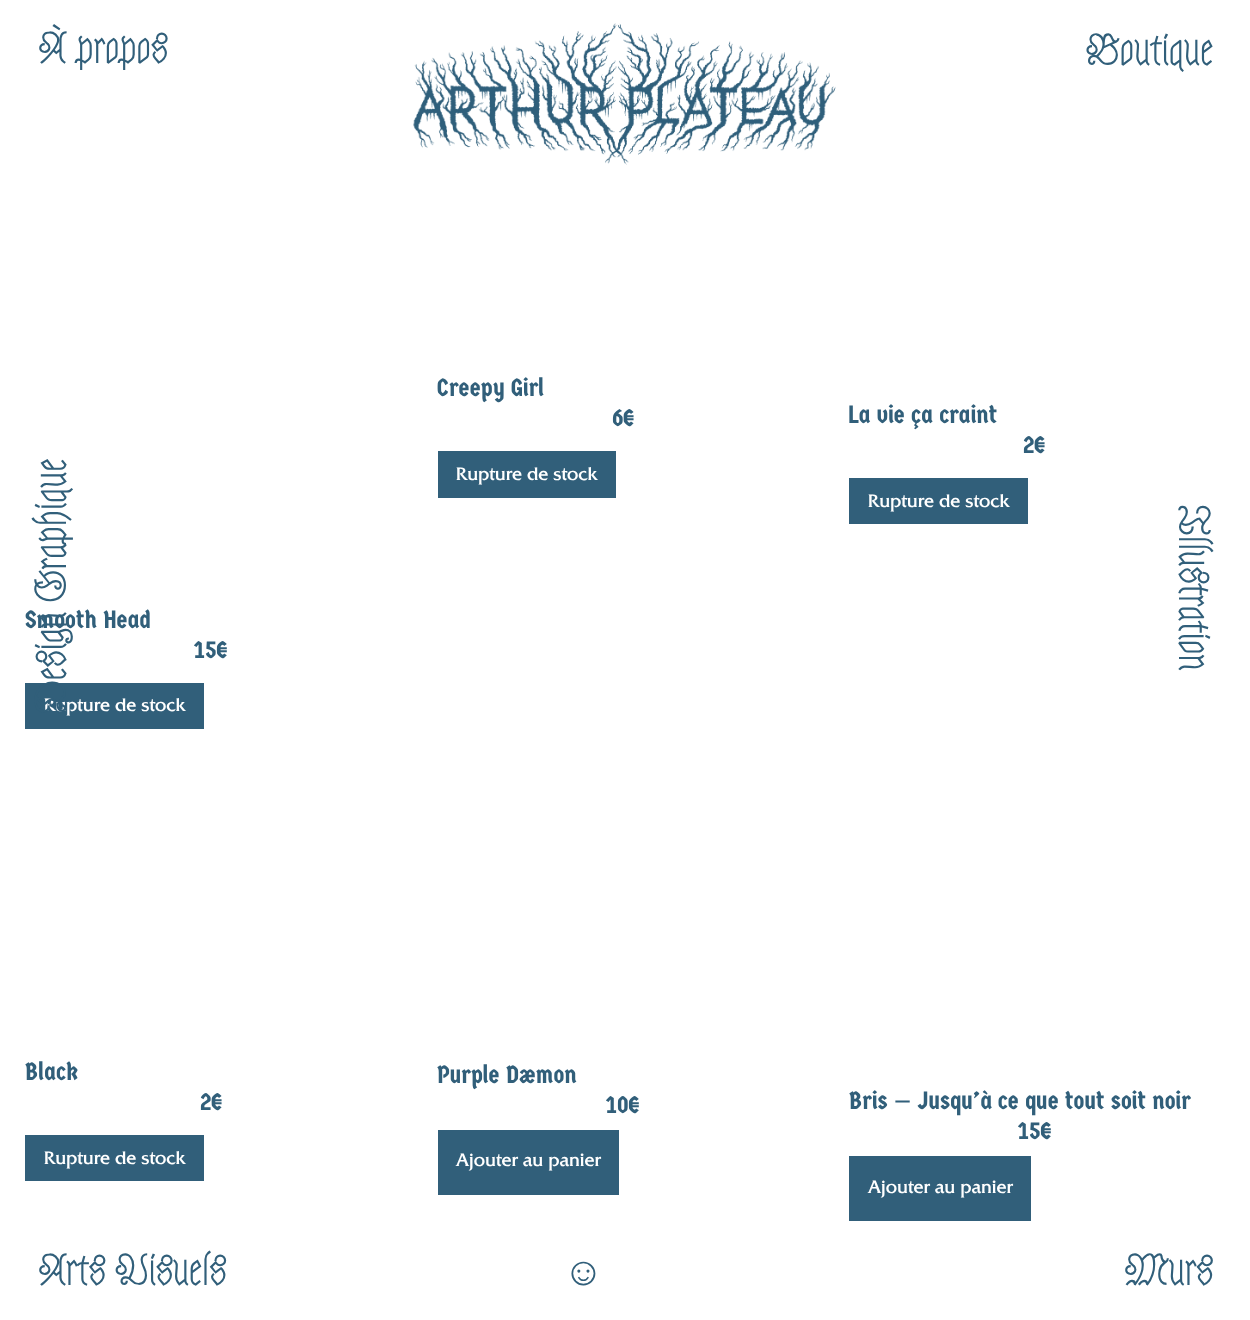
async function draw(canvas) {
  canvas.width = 1250
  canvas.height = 1320
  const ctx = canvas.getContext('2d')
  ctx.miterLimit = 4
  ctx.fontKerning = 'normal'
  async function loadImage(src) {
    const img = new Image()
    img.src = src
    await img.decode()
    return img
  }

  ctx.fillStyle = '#fff'
  ctx.fillRect(0, 0, 1250, 1320)
  ctx.font = 'bold 40px Astloch'
  ctx.fillStyle = '#315f7a'
  ctx.fillText('À propos', 38, 63)
  ctx.drawImage(await loadImage('image0.png'), 413, 23, 423, 142)
  ctx.fillText('Boutique', 1085, 65)
  ctx.font = '25px Germania One'
  ctx.fillText('Creepy Girl', 437, 396)
  ctx.fillText('6€', 612, 426)
  ctx.fillRect(438, 451, 178, 47)
  ctx.font = '17.5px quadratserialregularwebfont'
  ctx.fillStyle = '#fff'
  ctx.fillText('Rupture de stock', 456, 480)
  ctx.font = '25px Germania One'
  ctx.fillStyle = '#315f7a'
  ctx.fillText('La vie ça craint', 849, 423)
  ctx.fillText('2€', 1023, 453)
  ctx.fillRect(849, 478, 179, 46)
  ctx.font = '17.5px quadratserialregularwebfont'
  ctx.fillStyle = '#fff'
  ctx.fillText('Rupture de stock', 868, 507)
  ctx.font = '25px Germania One'
  ctx.fillStyle = '#315f7a'
  ctx.fillText('Smooth Head', 25, 628)
  ctx.fillText('15€', 193, 658)
  ctx.fillRect(25, 683, 179, 46)
  ctx.font = '17.5px quadratserialregularwebfont'
  ctx.fillStyle = '#fff'
  ctx.fillText('Rupture de stock', 44, 711)
  ctx.font = '25px Germania One'
  ctx.fillStyle = '#315f7a'
  ctx.fillText('Black', 25, 1080)
  ctx.fillText('2€', 200, 1110)
  ctx.fillRect(25, 1135, 179, 46)
  ctx.font = '17.5px quadratserialregularwebfont'
  ctx.fillStyle = '#fff'
  ctx.fillText('Rupture de stock', 44, 1164)
  ctx.font = '25px Germania One'
  ctx.fillStyle = '#315f7a'
  ctx.fillText('Purple Dæmon', 437, 1083)
  ctx.fillText('10€', 605, 1113)
  ctx.fillRect(438, 1130, 181, 65)
  ctx.font = '17.5px quadratserialregularwebfont'
  ctx.fillStyle = '#fff'
  ctx.fillText('Ajouter au panier', 456, 1166)
  ctx.font = '25px Germania One'
  ctx.fillStyle = '#315f7a'
  ctx.fillText('Bris — Jusqu’à ce que tout soit noir', 849, 1109)
  ctx.fillText('15€', 1017, 1139)
  ctx.fillRect(849, 1156, 182, 65)
  ctx.font = '17.5px quadratserialregularwebfont'
  ctx.fillStyle = '#fff'
  ctx.fillText('Ajouter au panier', 868, 1193)
  ctx.font = 'bold 40px Astloch'
  ctx.fillStyle = '#315f7a'
  ctx.save()
  ctx.translate(66, 714)
  ctx.rotate(-90 * Math.PI / 180)
  ctx.fillText('Design Graphique', 0, 0)
  ctx.restore()
  ctx.save()
  ctx.translate(1179, 504)
  ctx.rotate(90 * Math.PI / 180)
  ctx.fillText('Illustration', 0, 0)
  ctx.restore()
  ctx.fillText('Arts Visuels', 38, 1285)
  ctx.font = 'bold 40px Liberation Serif'
  ctx.fillText('☺', 563, 1285)
  ctx.font = 'bold 40px Astloch'
  ctx.fillText('Murs', 1124, 1285)
}

draw(document.querySelector('canvas'))
